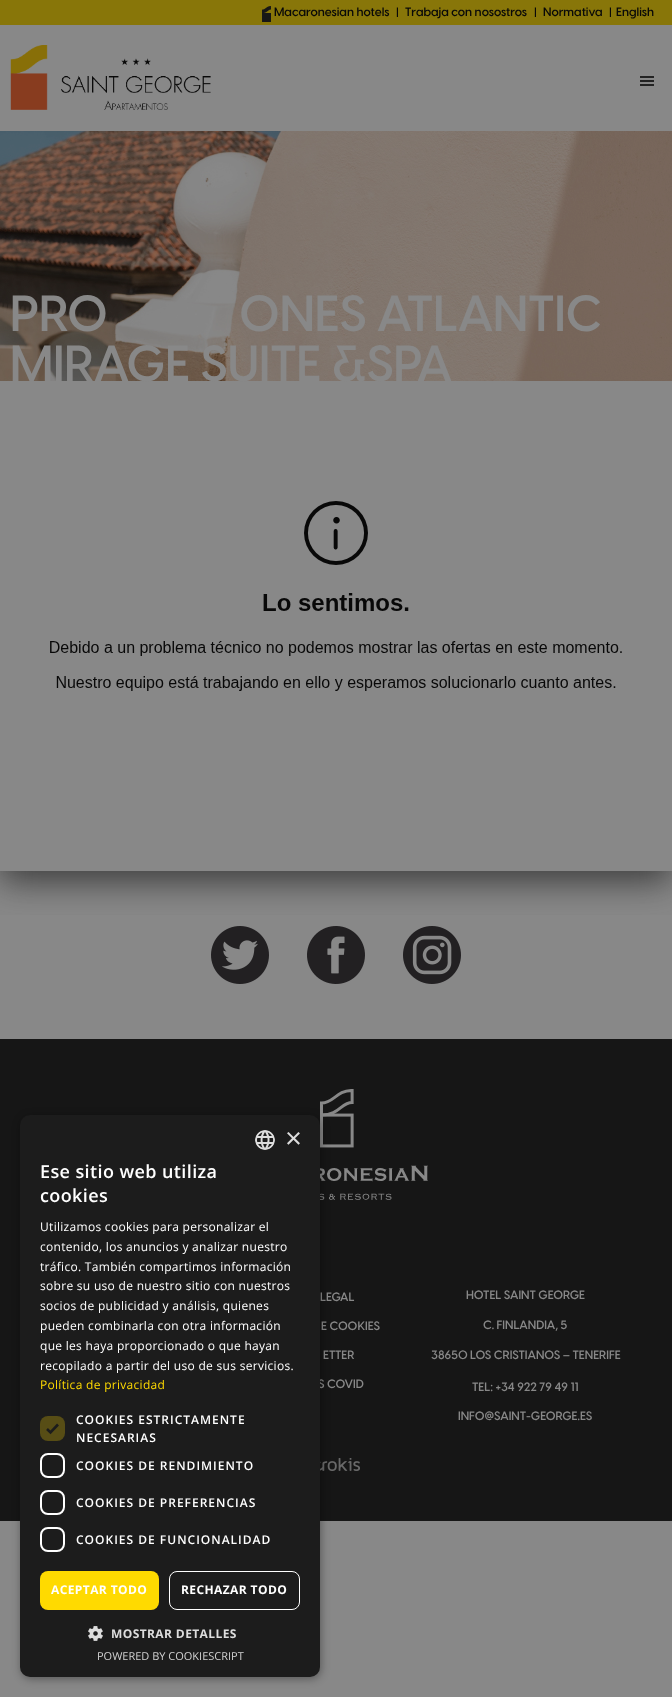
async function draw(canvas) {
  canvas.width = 672
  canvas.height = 1697
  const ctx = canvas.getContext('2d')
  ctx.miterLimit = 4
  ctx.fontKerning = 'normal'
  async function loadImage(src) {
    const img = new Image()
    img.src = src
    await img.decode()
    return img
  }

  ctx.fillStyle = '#888'
  ctx.fillRect(0, 0, 672, 1697)
  ctx.fillStyle = '#887609'
  ctx.fillRect(0, 0, 672, 25)
  ctx.drawImage(await loadImage('image0.png'), 262, 6, 9, 16)
  ctx.font = '600 12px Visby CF'
  ctx.fillStyle = '#090909'
  ctx.fillText('Macaronesian hotels', 274, 16)
  ctx.fillText('|', 396, 16)
  ctx.fillText('Trabaja con nosostros', 405, 16)
  ctx.fillText('|', 534, 16)
  ctx.fillText('Normativa', 543, 16)
  ctx.fillText('|', 609, 16)
  ctx.fillText('English', 616, 16)
  ctx.drawImage(await loadImage('image1.png'), 10, 45, 201, 65)
  ctx.drawImage(await loadImage('image2.png'), 640, 76, 14, 10)
  ctx.save()
  ctx.beginPath()
  ctx.rect(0, 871, 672, 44)
  ctx.clip()
  ctx.fillStyle = '#222222bf'
  ctx.filter = 'blur(17.5px)'
  ctx.beginPath()
  ctx.rect(0, 391, 672, 490)
  ctx.fill()
  ctx.filter = 'none'
  ctx.restore()
  ctx.drawImage(await loadImage('image3.png'), 0, 131, 672, 250)
  ctx.font = '600 50px Visby CF'
  ctx.fillStyle = '#888'
  ctx.fillText('PRO', 10, 331)
  ctx.fillText('ONES ATLANTIC', 239, 331)
  ctx.fillText('MIRAGE SUITE &SPA', 10, 381)
  ctx.drawImage(await loadImage('image4.png'), 50, 501, 572, 190)
  ctx.drawImage(await loadImage('image5.png'), 211, 926, 58, 58)
  ctx.drawImage(await loadImage('image6.png'), 307, 926, 58, 58)
  ctx.drawImage(await loadImage('image7.png'), 403, 926, 58, 58)
  ctx.fillStyle = '#161616'
  ctx.fillRect(0, 1039, 672, 482)
  ctx.drawImage(await loadImage('image8.png'), 320, 1089, 108, 111)
  ctx.font = '600 12px Visby CF'
  ctx.fillStyle = '#888'
  ctx.fillText('LEGAL', 320, 1301)
  ctx.fillText('E COOKIES', 321, 1330)
  ctx.fillText('ETTER', 323, 1359)
  ctx.fillText('S COVID', 318, 1388)
  ctx.fillText('HOTEL SAINT GEORGE', 466, 1299)
  ctx.fillText('C. FINLANDIA, 5', 483, 1329)
  ctx.fillText('38650 LOS CRISTIANOS – TENERIFE', 431, 1359)
  ctx.fillText('TEL: +34 922 79 49 11', 472, 1391)
  ctx.fillText('INFO@SAINT-GEORGE.ES', 458, 1420)
  ctx.drawImage(await loadImage('image9.png'), 320, 1458, 40, 13)
  ctx.fillStyle = '#00000059'
  ctx.filter = 'blur(4px)'
  ctx.beginPath()
  ctx.roundRect(21, 1117, 300, 562, 10)
  ctx.fill()
  ctx.filter = 'none'
  ctx.fillStyle = '#1c1c1c'
  ctx.beginPath()
  ctx.roundRect(20, 1115, 300, 562, 10)
  ctx.fill()
  ctx.drawImage(await loadImage('image10.png'), 255, 1130, 20, 20)
  ctx.font = '29px Liberation Sans'
  ctx.fillStyle = '#ddd'
  ctx.fillText('×', 285, 1148)
  ctx.letterSpacing = '0.4px'
  ctx.font = '600 18px Open Sans'
  ctx.fillStyle = '#fff'
  ctx.fillText('Ese sitio web utiliza', 40, 1178)
  ctx.fillText('cookies', 40, 1202)
  ctx.letterSpacing = '0.3px'
  ctx.font = '12px Open Sans'
  ctx.fillText('Utilizamos cookies para personalizar el', 40, 1231)
  ctx.fillText('contenido, los anuncios y analizar nuestro', 40, 1251)
  ctx.fillText('tráfico. También compartimos información', 40, 1271)
  ctx.fillText('sobre su uso de nuestro sitio con nuestros', 40, 1290)
  ctx.fillText('socios de publicidad y análisis, quienes', 40, 1310)
  ctx.fillText('pueden combinarla con otra información', 40, 1330)
  ctx.fillText('que les haya proporcionado o que hayan', 40, 1350)
  ctx.fillText('recopilado a partir del uso de sus servicios.', 40, 1370)
  ctx.fillStyle = '#ffda00'
  ctx.fillText('Política de privacidad', 40, 1389)
  ctx.fillStyle = '#574d15'
  ctx.beginPath()
  ctx.roundRect(40, 1416, 25, 25, 8)
  ctx.fill()
  ctx.beginPath()
  ctx.moveTo(47, 1429)
  ctx.lineTo(50.5, 1432.5)
  ctx.lineTo(58, 1424.5)
  ctx.strokeStyle = '#1c1c1c'
  ctx.lineWidth = 2.6
  ctx.stroke()
  ctx.letterSpacing = '1px'
  ctx.font = '600 12px Open Sans'
  ctx.fillStyle = '#fff'
  ctx.fillText('COOKIES ESTRICTAMENTE', 76, 1424)
  ctx.fillText('NECESARIAS', 76, 1442)
  ctx.beginPath()
  ctx.roundRect(41, 1454, 23, 23, 7)
  ctx.strokeStyle = '#fff'
  ctx.lineWidth = 2
  ctx.stroke()
  ctx.fillText('COOKIES DE RENDIMIENTO', 76, 1470)
  ctx.beginPath()
  ctx.roundRect(41, 1491, 23, 23, 7)
  ctx.stroke()
  ctx.fillText('COOKIES DE PREFERENCIAS', 76, 1507)
  ctx.beginPath()
  ctx.roundRect(41, 1528, 23, 23, 7)
  ctx.stroke()
  ctx.fillText('COOKIES DE FUNCIONALIDAD', 76, 1544)
  ctx.fillStyle = '#ffda00'
  ctx.beginPath()
  ctx.roundRect(40, 1571, 119, 39, 8)
  ctx.fill()
  ctx.letterSpacing = '0.4px'
  ctx.font = 'bold 12px Open Sans'
  ctx.fillStyle = '#fff'
  ctx.fillText('ACEPTAR TODO', 51, 1594)
  ctx.beginPath()
  ctx.roundRect(169.5, 1571.5, 130, 38, 7.5)
  ctx.lineWidth = 1
  ctx.stroke()
  ctx.fillText('RECHAZAR TODO', 181, 1594)
  ctx.drawImage(await loadImage('image11.png'), 88, 1626, 15, 15)
  ctx.fillStyle = '#ddd'
  ctx.fillText('MOSTRAR DETALLES', 111, 1638)
  ctx.letterSpacing = '0px'
  ctx.font = '11px Open Sans'
  ctx.fillStyle = '#d2d2d2'
  ctx.fillText('POWERED BY COOKIESCRIPT', 97, 1660)
}

draw(document.querySelector('canvas'))
